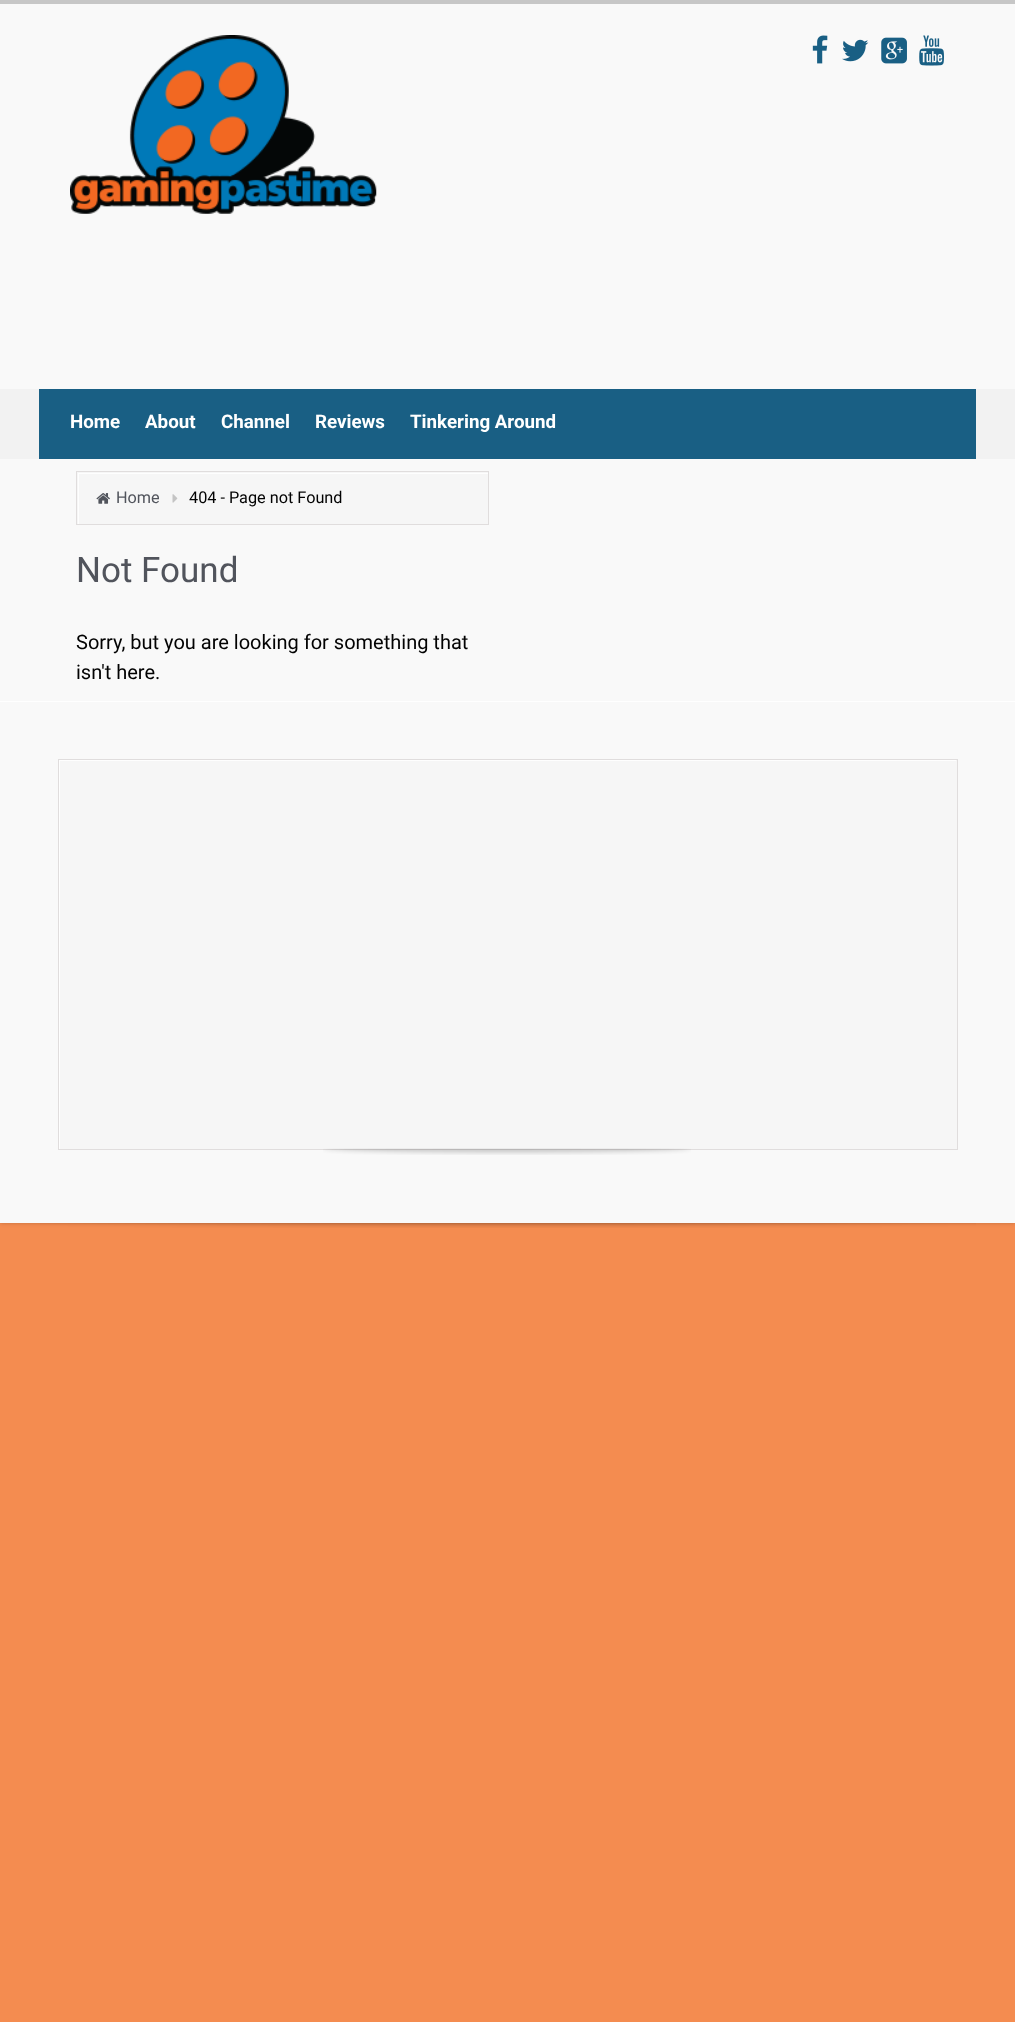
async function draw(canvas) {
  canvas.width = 1015
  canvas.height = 2022
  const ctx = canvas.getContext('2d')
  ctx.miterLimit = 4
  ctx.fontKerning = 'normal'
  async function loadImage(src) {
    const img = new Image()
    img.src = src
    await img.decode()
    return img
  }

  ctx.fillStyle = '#f48c50'
  ctx.fillRect(0, 0, 1015, 2022)
  ctx.drawImage(await loadImage('image8.png'), 40, 1223, 936, 5)
  ctx.fillStyle = '#00000033'
  ctx.filter = 'blur(2px)'
  ctx.beginPath()
  ctx.rect(0, 0, 1015, 1223)
  ctx.fill()
  ctx.filter = 'none'
  ctx.fillStyle = '#f9f9f9'
  ctx.fillRect(0, 4, 1015, 1219)
  ctx.fillStyle = '#c7c7c7'
  ctx.fillRect(0, 0, 1015, 4)
  ctx.drawImage(await loadImage('image0.png'), 70, 35, 307, 179)
  ctx.drawImage(await loadImage('image1.png'), 812, 35, 16, 29)
  ctx.drawImage(await loadImage('image2.png'), 842, 39, 27, 23)
  ctx.drawImage(await loadImage('image3.png'), 881, 37, 26, 27)
  ctx.drawImage(await loadImage('image4.png'), 919, 35, 25, 31)
  ctx.fillStyle = '#f2f2f2'
  ctx.fillRect(0, 389, 1015, 70)
  ctx.fillStyle = '#195f84'
  ctx.fillRect(39, 389, 937, 70)
  ctx.font = 'bold 18.75px Roboto'
  ctx.fillStyle = '#fff'
  ctx.fillText('Home', 70, 428)
  ctx.fillText('About', 145, 428)
  ctx.fillText('Channel', 221, 428)
  ctx.fillText('Reviews', 315, 428)
  ctx.fillText('Tinkering Around', 410, 428)
  ctx.fillStyle = '#f6f6f6'
  ctx.fillRect(77, 472, 411, 52)
  ctx.save()
  ctx.beginPath()
  ctx.rect(78, 473, 410, 51)
  ctx.clip()
  ctx.fillStyle = '#fefefe'
  ctx.beginPath()
  ctx.moveTo(-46, 349)
  ctx.lineTo(611, 349)
  ctx.lineTo(611, 648)
  ctx.lineTo(-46, 648)
  ctx.closePath()
  ctx.moveTo(79, 474)
  ctx.lineTo(489, 474)
  ctx.lineTo(489, 525)
  ctx.lineTo(79, 525)
  ctx.closePath()
  ctx.fill('evenodd')
  ctx.restore()
  ctx.strokeStyle = '#e0dddd'
  ctx.strokeRect(76.5, 471.5, 412, 53)
  ctx.drawImage(await loadImage('image5.png'), 96, 493, 14, 11)
  ctx.font = '16.25px Roboto'
  ctx.fillStyle = '#51545c'
  ctx.fillText('Home', 116, 503)
  ctx.drawImage(await loadImage('image6.png'), 172, 494, 6, 9)
  ctx.fillStyle = '#020202'
  ctx.fillText('404 - Page not Found', 189, 503)
  ctx.font = '35px Roboto'
  ctx.fillStyle = '#51545c'
  ctx.fillText('Not Found', 76, 582)
  ctx.font = '20px Roboto'
  ctx.fillStyle = '#020202'
  ctx.fillText('Sorry, but you are looking for something that', 76, 649)
  ctx.fillText('isn\'t here.', 76, 679)
  ctx.fillStyle = '#fff'
  ctx.fillRect(0, 701, 1015, 1)
  ctx.fillStyle = '#f6f6f6'
  ctx.fillRect(60, 760, 897, 389)
  ctx.save()
  ctx.beginPath()
  ctx.rect(59, 760, 897, 389)
  ctx.clip()
  ctx.fillStyle = '#fefefe'
  ctx.beginPath()
  ctx.moveTo(-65, 636)
  ctx.lineTo(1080, 636)
  ctx.lineTo(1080, 1272)
  ctx.lineTo(-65, 1272)
  ctx.closePath()
  ctx.moveTo(60, 761)
  ctx.lineTo(958, 761)
  ctx.lineTo(958, 1150)
  ctx.lineTo(60, 1150)
  ctx.closePath()
  ctx.fill('evenodd')
  ctx.restore()
  ctx.strokeRect(58.5, 759.5, 899, 390)
  ctx.drawImage(await loadImage('image7.png'), 323, 1148, 368, 7)
}

draw(document.querySelector('canvas'))
